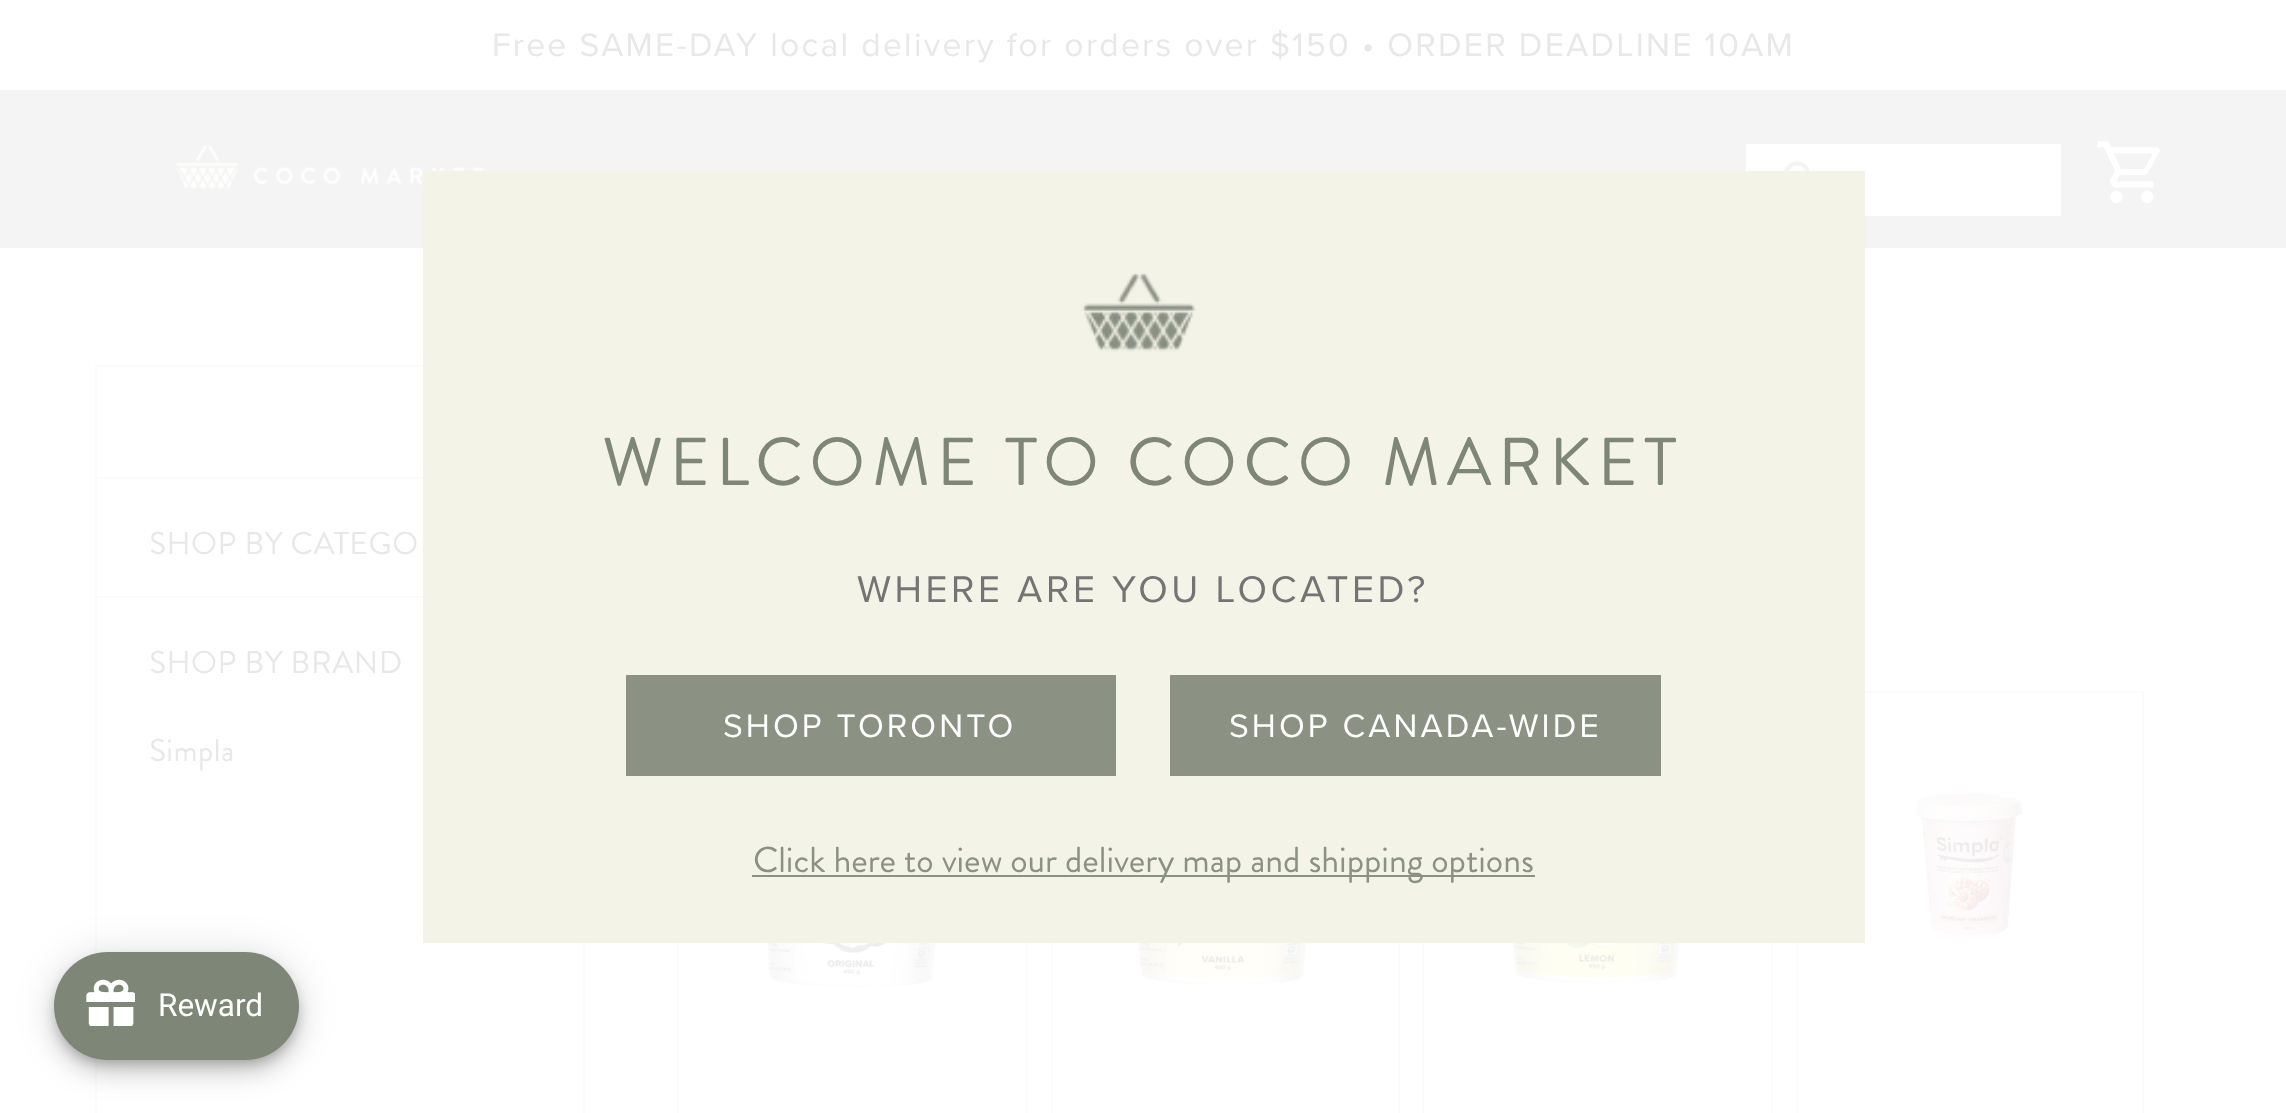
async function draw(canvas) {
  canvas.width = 2286
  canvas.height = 1113
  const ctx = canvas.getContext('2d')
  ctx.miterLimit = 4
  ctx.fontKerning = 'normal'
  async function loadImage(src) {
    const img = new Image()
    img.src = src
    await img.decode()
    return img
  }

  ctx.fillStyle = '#fff'
  ctx.fillRect(0, 0, 2286, 1113)
  ctx.letterSpacing = '2.25px'
  ctx.font = '31.5px Proxima Nova'
  ctx.fillStyle = '#e8e8e8'
  ctx.fillText('Free SAME-DAY local delivery for orders over $150 • ORDER DEADLINE 10AM', 492, 56)
  ctx.fillStyle = '#f3f4f3'
  ctx.fillRect(0, 90, 2286, 158)
  ctx.drawImage(await loadImage('image0.png'), 175, 144, 310, 46)
  ctx.fillStyle = '#fff'
  ctx.fillRect(1746, 144, 315, 72)
  ctx.drawImage(await loadImage('image1.png'), 1784, 161, 26, 10)
  ctx.drawImage(await loadImage('image2.png'), 2097, 141, 63, 63)
  ctx.strokeStyle = '#fbfbfb'
  ctx.lineWidth = 2
  ctx.strokeRect(96, 366, 488, 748)
  ctx.fillStyle = '#fbfbfb'
  ctx.fillRect(97, 477, 326, 2)
  ctx.letterSpacing = '0.6px'
  ctx.font = '31.5px Brandon Grotesque'
  ctx.fillStyle = '#e8e8e8'
  ctx.fillText('SHOP BY CATEGO', 149, 554)
  ctx.fillStyle = '#fbfbfb'
  ctx.fillRect(97, 596, 326, 2)
  ctx.fillStyle = '#e8e8e8'
  ctx.fillText('SHOP BY BRAND', 149, 673)
  ctx.fillText('Simpla', 149, 761)
  ctx.strokeRect(678, 692, 349, 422)
  ctx.drawImage(await loadImage('image3.png'), 766, 943, 171, 45)
  ctx.strokeRect(1052, 692, 347, 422)
  ctx.drawImage(await loadImage('image4.png'), 1138, 943, 169, 42)
  ctx.strokeRect(1423, 692, 349, 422)
  ctx.drawImage(await loadImage('image5.png'), 1512, 943, 169, 41)
  ctx.strokeRect(1797, 692, 346, 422)
  ctx.drawImage(await loadImage('image6.png'), 1915, 792, 108, 147)
  ctx.fillStyle = '#f4f3e7'
  ctx.fillRect(423, 171, 1442, 772)
  ctx.drawImage(await loadImage('image7.png'), 1082, 272, 114, 80)
  ctx.letterSpacing = '6.75px'
  ctx.font = '67.5px Brandon Grotesque'
  ctx.fillStyle = '#7e8678'
  ctx.fillText('WELCOME TO COCO MARKET', 602, 485)
  ctx.letterSpacing = '3.6px'
  ctx.font = '36px Proxima Nova'
  ctx.fillStyle = '#747474'
  ctx.fillText('WHERE ARE YOU LOCATED?', 857, 602)
  ctx.fillStyle = '#8b9183'
  ctx.fillRect(626, 675, 490, 101)
  ctx.letterSpacing = '3.1px'
  ctx.font = '31.5px Proxima Nova'
  ctx.fillStyle = '#fff'
  ctx.fillText('SHOP TORONTO', 723, 737)
  ctx.fillStyle = '#8b9183'
  ctx.fillRect(1170, 675, 491, 101)
  ctx.fillStyle = '#fff'
  ctx.fillText('SHOP CANADA-WIDE', 1229, 737)
  ctx.fillStyle = '#8b9183'
  ctx.fillRect(752, 875, 783, 2)
  ctx.letterSpacing = '0px'
  ctx.font = '36px Brandon Grotesque'
  ctx.fillText('Click here to view our delivery map and shipping options', 753, 872)
  ctx.fillStyle = '#0000001f'
  ctx.filter = 'blur(20px)'
  ctx.beginPath()
  ctx.roundRect(54, 954, 245, 108, 54)
  ctx.fill()
  ctx.filter = 'none'
  ctx.fillStyle = '#00000024'
  ctx.filter = 'blur(11px)'
  ctx.beginPath()
  ctx.roundRect(54, 965, 245, 108, 54)
  ctx.fill()
  ctx.filter = 'none'
  ctx.fillStyle = '#00000033'
  ctx.filter = 'blur(5.5px)'
  ctx.beginPath()
  ctx.roundRect(56, 961, 241, 103, 51.5)
  ctx.fill()
  ctx.filter = 'none'
  ctx.fillStyle = '#7e8678'
  ctx.beginPath()
  ctx.roundRect(54, 952, 245, 108, 54)
  ctx.fill()
  ctx.drawImage(await loadImage('image8.png'), 86, 979, 49, 47)
  ctx.font = '31.5px Roboto'
  ctx.fillStyle = '#fff'
  ctx.fillText('Reward', 158, 1016)
}

draw(document.querySelector('canvas'))
